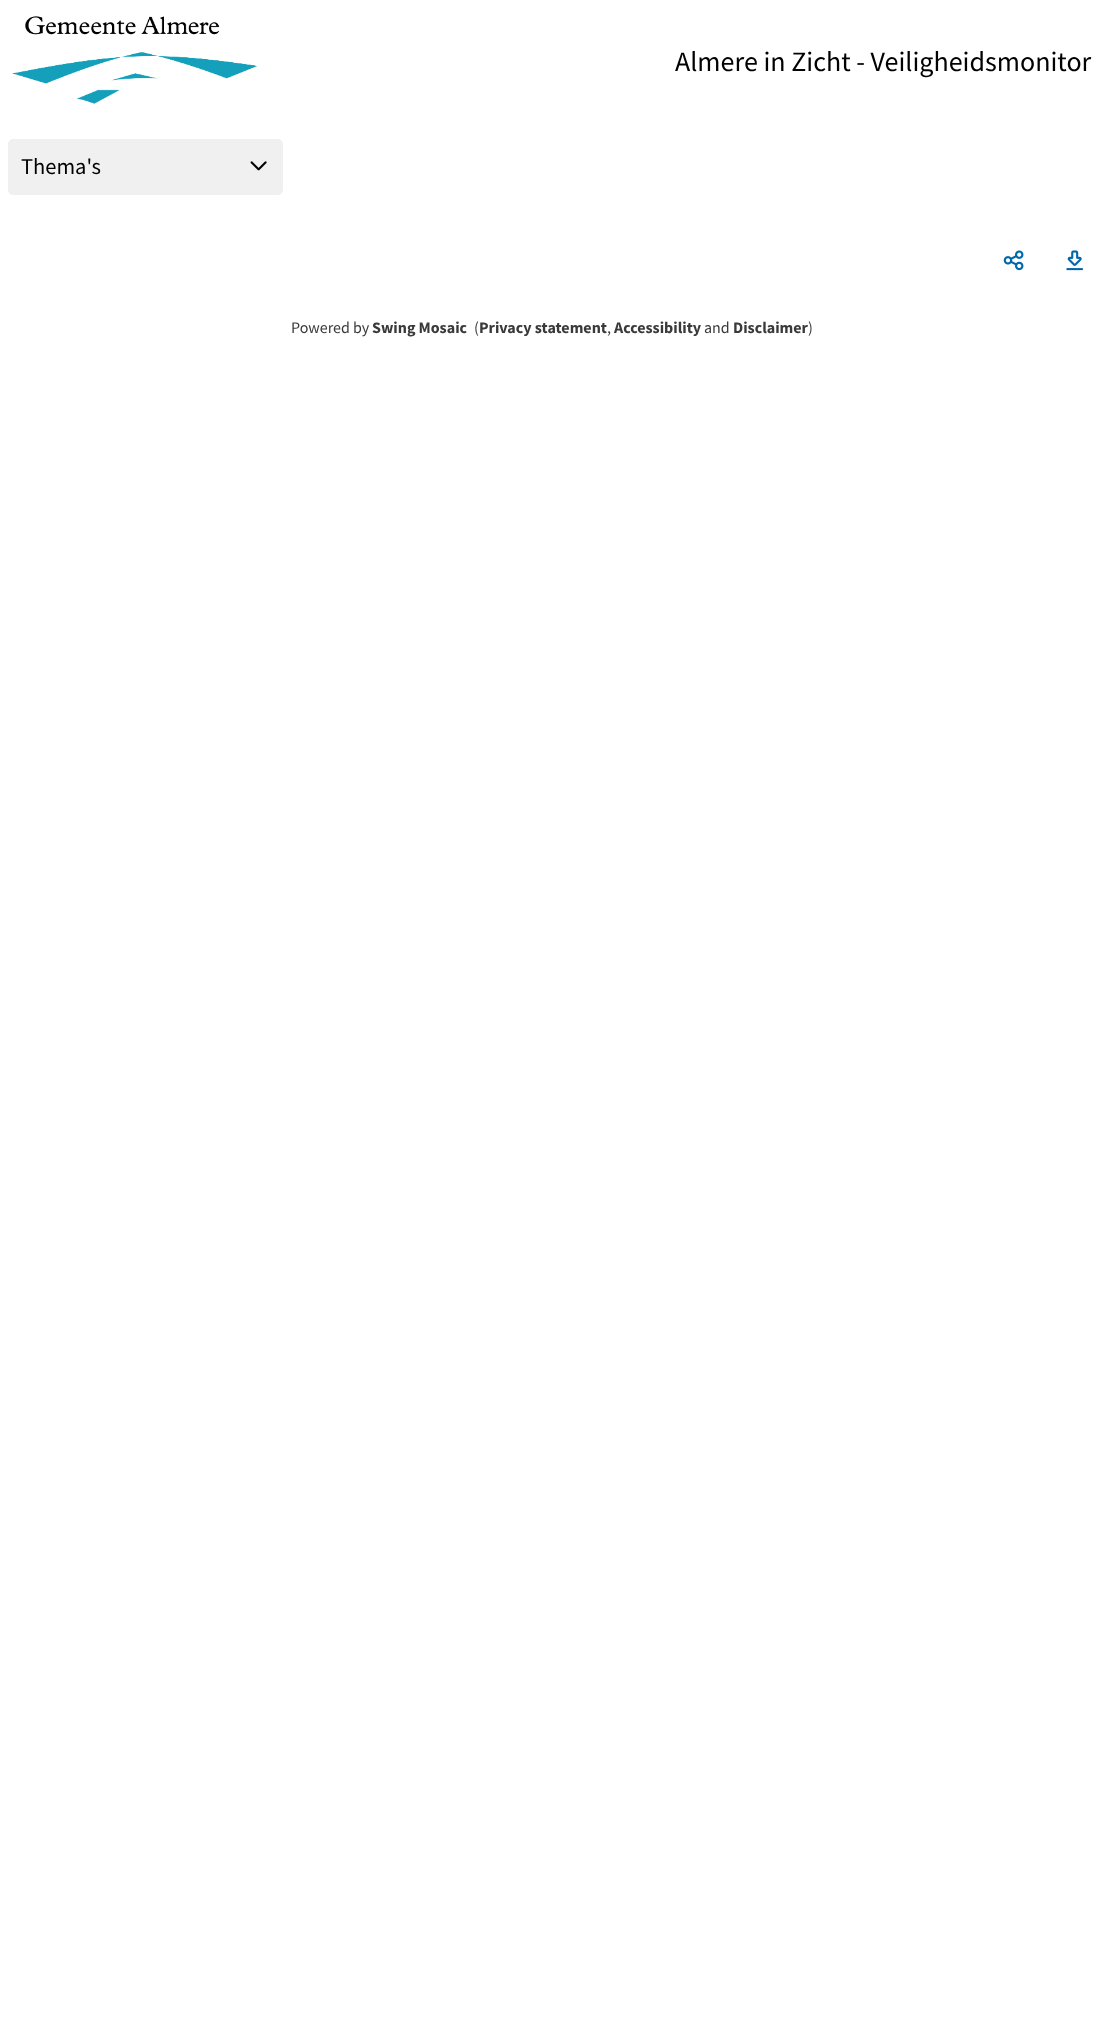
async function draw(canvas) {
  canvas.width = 1103
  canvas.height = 2028
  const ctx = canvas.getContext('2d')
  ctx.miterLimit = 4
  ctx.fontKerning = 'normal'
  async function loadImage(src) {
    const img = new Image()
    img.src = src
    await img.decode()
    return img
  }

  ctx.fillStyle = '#fff'
  ctx.fillRect(0, 0, 1103, 2028)
  ctx.drawImage(await loadImage('image0.png'), 12, 16, 246, 88)
  ctx.font = '28px Source Sans Pro'
  ctx.fillStyle = '#000'
  ctx.fillText('Almere in Zicht - Veiligheidsmonitor', 675, 71)
  ctx.fillStyle = '#f0f0f0'
  ctx.beginPath()
  ctx.roundRect(8.5, 139.5, 274, 55, 4.5)
  ctx.fill()
  ctx.strokeStyle = '#f0f0f0'
  ctx.stroke()
  ctx.font = '22.5px Source Sans Pro'
  ctx.fillStyle = '#000'
  ctx.fillText('Thema\'s', 21, 174)
  ctx.drawImage(await loadImage('image1.png'), 250, 161, 17, 10)
  ctx.drawImage(await loadImage('image2.png'), 1003, 250, 21, 21)
  ctx.drawImage(await loadImage('image3.png'), 1066, 250, 18, 21)
  ctx.font = '16px Source Sans Pro'
  ctx.fillStyle = '#3a3a3a'
  ctx.fillText('Powered by', 291, 333)
  ctx.font = 'bold 16px Source Sans Pro'
  ctx.fillText('Swing Mosaic', 372, 333)
  ctx.font = '16px Source Sans Pro'
  ctx.fillText('(', 474, 333)
  ctx.font = 'bold 16px Source Sans Pro'
  ctx.fillText('Privacy statement', 479, 333)
  ctx.font = '16px Source Sans Pro'
  ctx.fillText(',', 607, 333)
  ctx.font = 'bold 16px Source Sans Pro'
  ctx.fillText('Accessibility', 614, 333)
  ctx.font = '16px Source Sans Pro'
  ctx.fillText('and', 704, 333)
  ctx.font = 'bold 16px Source Sans Pro'
  ctx.fillText('Disclaimer', 733, 333)
  ctx.font = '16px Source Sans Pro'
  ctx.fillText(')', 808, 333)
}

draw(document.querySelector('canvas'))
